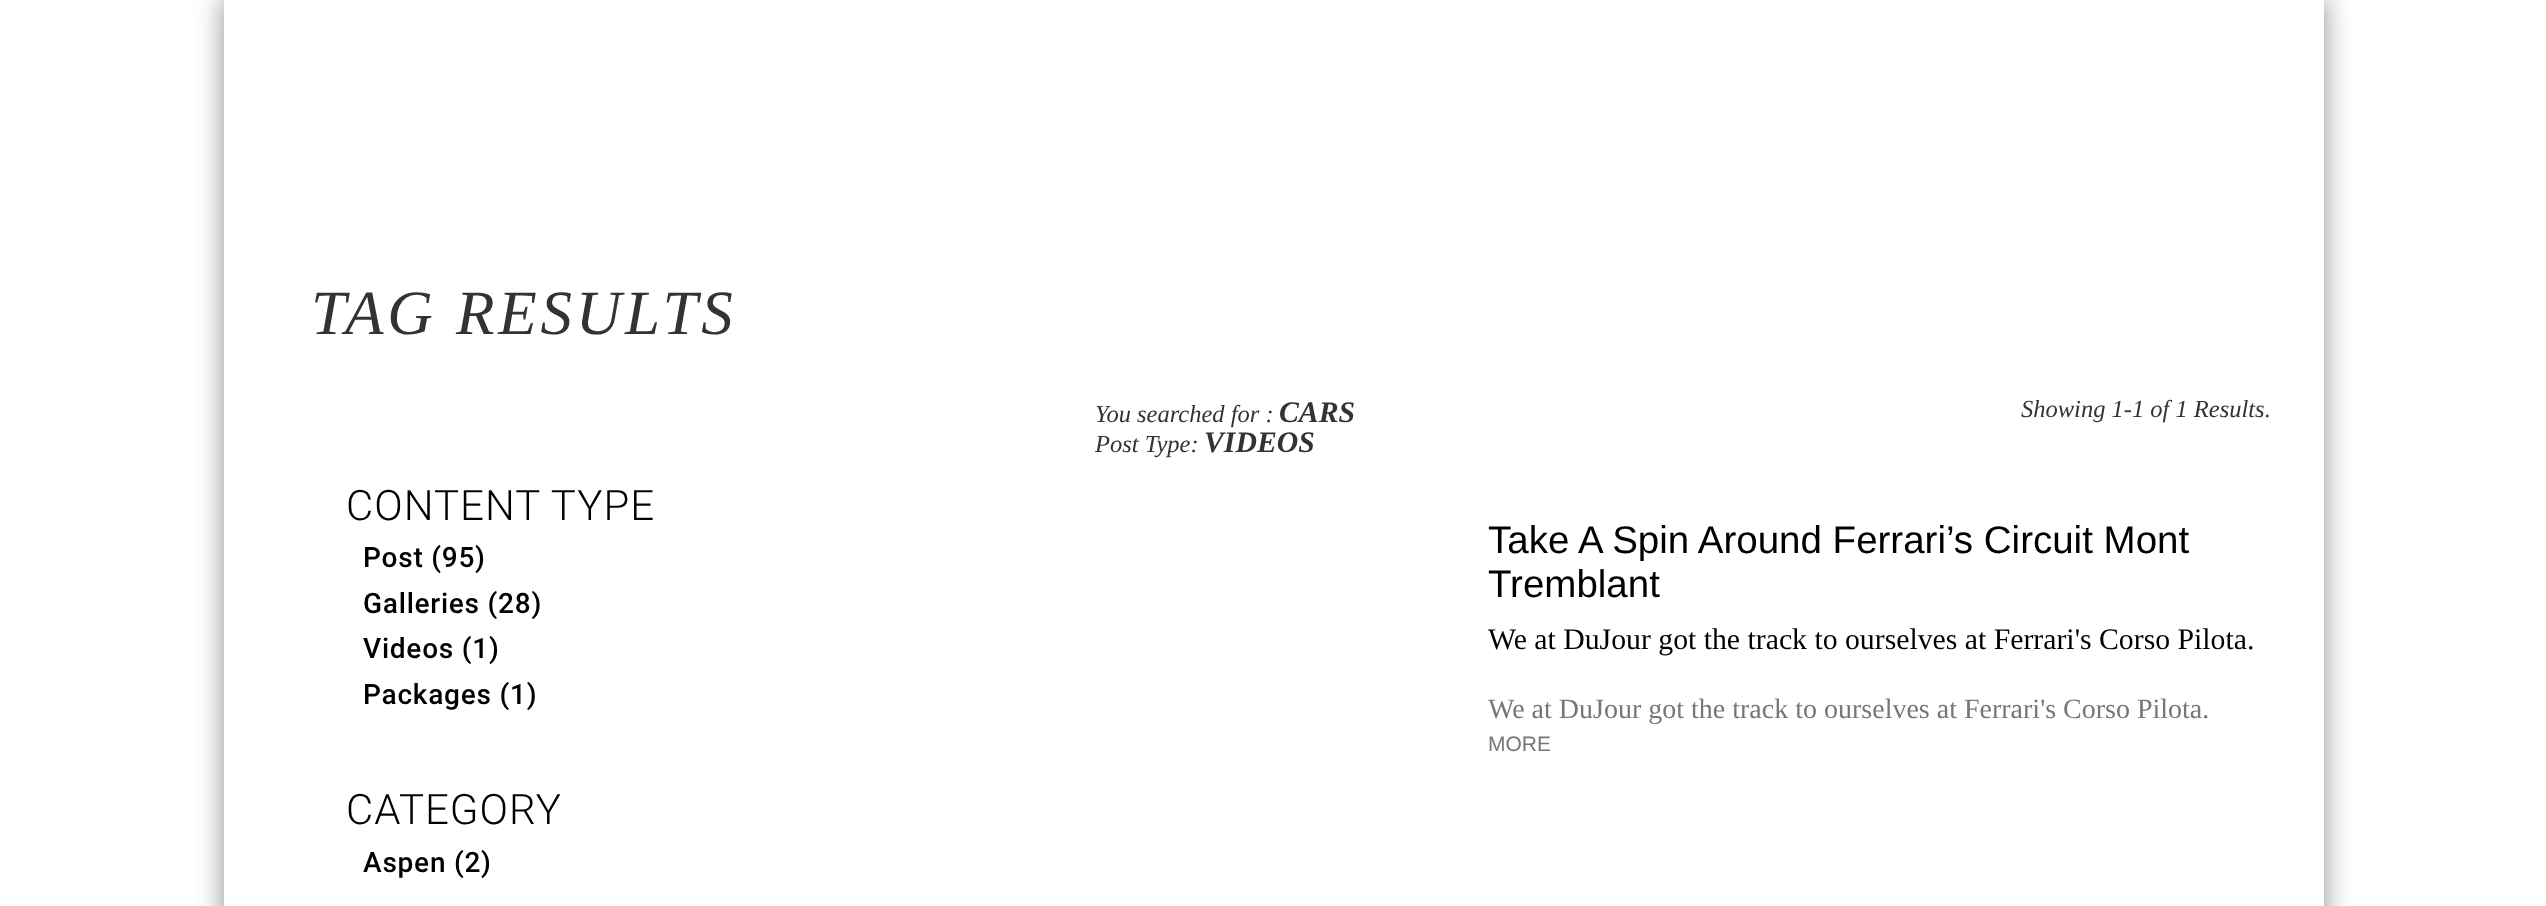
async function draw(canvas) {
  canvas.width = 2546
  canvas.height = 906
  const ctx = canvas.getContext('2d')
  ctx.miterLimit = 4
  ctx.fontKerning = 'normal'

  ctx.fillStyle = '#fff'
  ctx.fillRect(0, 0, 2546, 906)
  ctx.save()
  ctx.beginPath()
  ctx.moveTo(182, 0)
  ctx.lineTo(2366, 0)
  ctx.lineTo(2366, 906)
  ctx.lineTo(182, 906)
  ctx.closePath()
  ctx.moveTo(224, 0)
  ctx.lineTo(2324, 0)
  ctx.lineTo(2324, 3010)
  ctx.lineTo(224, 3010)
  ctx.closePath()
  ctx.clip('evenodd')
  ctx.fillStyle = '#9c9c9c'
  ctx.filter = 'blur(13px)'
  ctx.beginPath()
  ctx.rect(222, -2, 2104, 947)
  ctx.fill()
  ctx.filter = 'none'
  ctx.restore()
  ctx.letterSpacing = '3.75px'
  ctx.font = 'italic 63px Liberation Serif'
  ctx.fillStyle = '#333'
  ctx.fillText('TAG RESULTS', 311, 334)
  ctx.letterSpacing = '1px'
  ctx.font = '300 42px Roboto'
  ctx.fillStyle = '#000'
  ctx.fillText('CONTENT TYPE', 346, 520)
  ctx.letterSpacing = '0.75px'
  ctx.font = '500 28px Roboto'
  ctx.fillText('Post (95)', 363, 567)
  ctx.fillText('Galleries (28)', 363, 613)
  ctx.fillText('Videos (1)', 363, 658)
  ctx.fillText('Packages (1)', 363, 704)
  ctx.letterSpacing = '1px'
  ctx.font = '300 42px Roboto'
  ctx.fillText('CATEGORY', 346, 824)
  ctx.letterSpacing = '0.75px'
  ctx.font = '500 28px Roboto'
  ctx.fillText('Aspen (2)', 363, 872)
  ctx.letterSpacing = '0px'
  ctx.font = 'italic 24.5px Liberation Serif'
  ctx.fillStyle = '#333'
  ctx.fillText('You searched for :', 1095, 422)
  ctx.font = 'italic bold 29.75px Liberation Serif'
  ctx.fillText('CARS', 1279, 422)
  ctx.font = 'italic 24.5px Liberation Serif'
  ctx.fillText('Post Type:', 1095, 452)
  ctx.font = 'italic bold 29.75px Liberation Serif'
  ctx.fillText('VIDEOS', 1204, 452)
  ctx.font = 'italic 24.5px Liberation Serif'
  ctx.fillText('Showing 1-1 of 1 Results.', 2021, 417)
  ctx.font = '38.5px Liberation Sans'
  ctx.fillStyle = '#000'
  ctx.fillText('Take A Spin Around Ferrari’s Circuit Mont', 1488, 553)
  ctx.fillText('Tremblant', 1488, 597)
  ctx.font = '29.75px Liberation Serif'
  ctx.fillText('We at DuJour got the track to ourselves at Ferrari\'s Corso Pilota.', 1488, 649)
  ctx.font = '28px Liberation Serif'
  ctx.fillStyle = '#777'
  ctx.fillText('We at DuJour got the track to ourselves at Ferrari\'s Corso Pilota.', 1488, 718)
  ctx.font = '21px Liberation Sans'
  ctx.fillText('MORE', 1488, 751)
}

draw(document.querySelector('canvas'))
